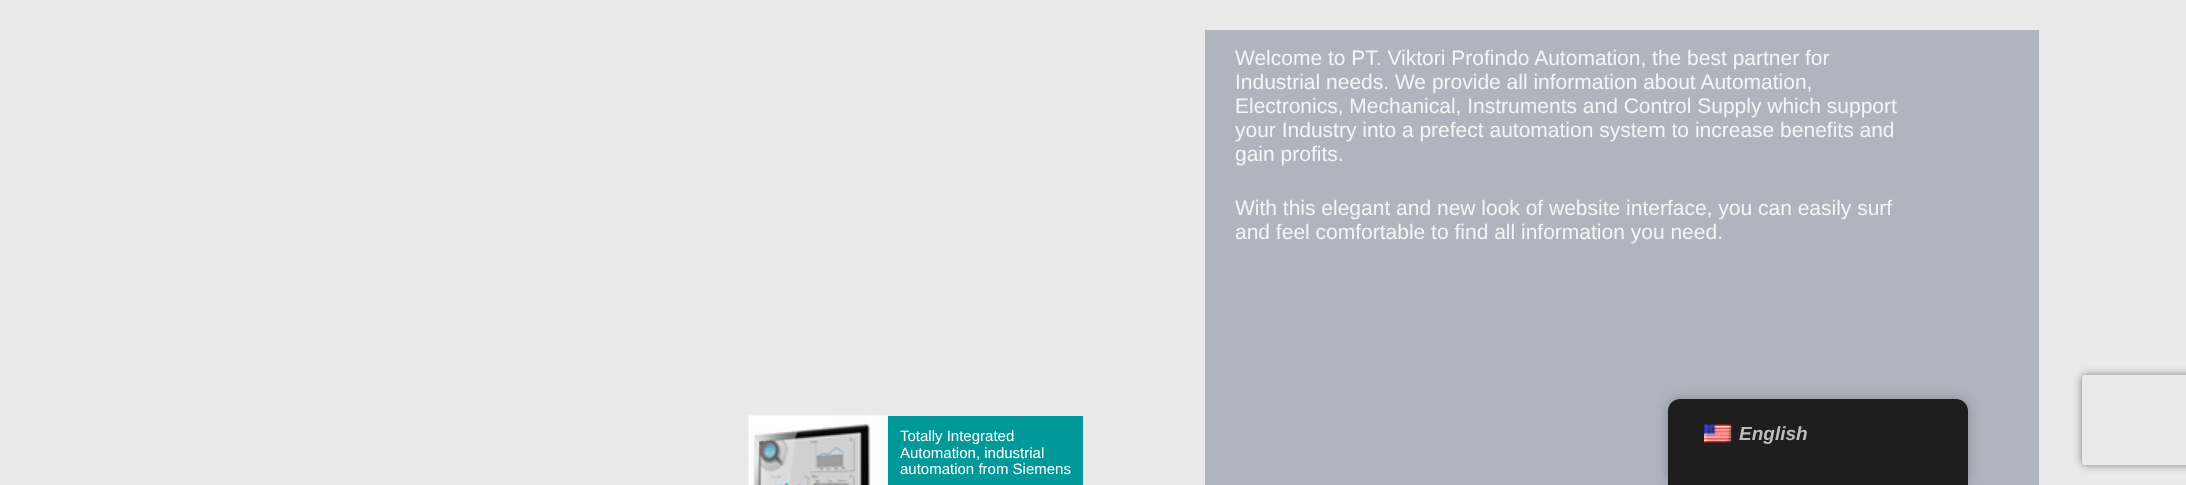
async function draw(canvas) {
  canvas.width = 2186
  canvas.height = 485
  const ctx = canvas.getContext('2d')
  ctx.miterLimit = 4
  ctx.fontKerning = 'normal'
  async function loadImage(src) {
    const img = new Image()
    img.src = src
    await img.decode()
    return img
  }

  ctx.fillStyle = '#eaeaea'
  ctx.fillRect(0, 0, 2186, 485)
  ctx.fillStyle = '#afb4be'
  ctx.fillRect(1205, 30, 834, 455)
  ctx.font = '21px Liberation Sans'
  ctx.fillStyle = '#f4f5f6'
  ctx.fillText('Welcome to PT. Viktori Profindo Automation, the best partner for', 1235, 65)
  ctx.fillText('Industrial needs. We provide all information about Automation,', 1235, 89)
  ctx.fillText('Electronics, Mechanical, Instruments and Control Supply which support', 1235, 113)
  ctx.fillText('your Industry into a prefect automation system to increase benefits and', 1235, 137)
  ctx.fillText('gain profits.', 1235, 161)
  ctx.fillText('With this elegant and new look of website interface, you can easily surf', 1235, 215)
  ctx.fillText('and feel comfortable to find all information you need.', 1235, 239)
  ctx.fillStyle = '#009899'
  ctx.fillRect(888, 416, 195, 69)
  ctx.drawImage(await loadImage('image0.png'), 748, 415, 140, 70)
  ctx.font = '15px Liberation Sans'
  ctx.fillStyle = '#fff'
  ctx.fillText('Totally Integrated', 900, 441)
  ctx.fillText('Automation, industrial', 900, 458)
  ctx.fillText('automation from Siemens', 900, 474)
  ctx.fillStyle = '#00000040'
  ctx.filter = 'blur(6px)'
  ctx.beginPath()
  ctx.roundRect(1668, 399, 300, 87, 12)
  ctx.fill()
  ctx.filter = 'none'
  ctx.fillStyle = '#1e1e1e'
  ctx.beginPath()
  ctx.moveTo(1680, 399)
  ctx.lineTo(1956, 399)
  ctx.bezierCurveTo(1962.5, 399, 1968, 404.5, 1968, 411)
  ctx.lineTo(1968, 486)
  ctx.lineTo(1668, 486)
  ctx.lineTo(1668, 411)
  ctx.bezierCurveTo(1668, 404.5, 1673.5, 399, 1680, 399)
  ctx.closePath()
  ctx.fill()
  ctx.drawImage(await loadImage('image1.png'), 1704, 424, 28, 19)
  ctx.font = 'italic bold 19px Liberation Sans'
  ctx.fillStyle = '#bdbdbd'
  ctx.fillText('English', 1739, 440)
  ctx.save()
  ctx.beginPath()
  ctx.moveTo(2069, 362)
  ctx.lineTo(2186, 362)
  ctx.lineTo(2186, 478)
  ctx.lineTo(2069, 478)
  ctx.closePath()
  ctx.moveTo(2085, 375)
  ctx.lineTo(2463, 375)
  ctx.bezierCurveTo(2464.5, 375, 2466, 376.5, 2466, 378)
  ctx.lineTo(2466, 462)
  ctx.bezierCurveTo(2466, 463.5, 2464.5, 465, 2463, 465)
  ctx.lineTo(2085, 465)
  ctx.bezierCurveTo(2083.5, 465, 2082, 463.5, 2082, 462)
  ctx.lineTo(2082, 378)
  ctx.bezierCurveTo(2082, 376.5, 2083.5, 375, 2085, 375)
  ctx.closePath()
  ctx.clip('evenodd')
  ctx.fillStyle = '#808080'
  ctx.filter = 'blur(4px)'
  ctx.beginPath()
  ctx.roundRect(2082, 375, 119, 90, 3)
  ctx.fill()
  ctx.filter = 'none'
  ctx.restore()
}

draw(document.querySelector('canvas'))
